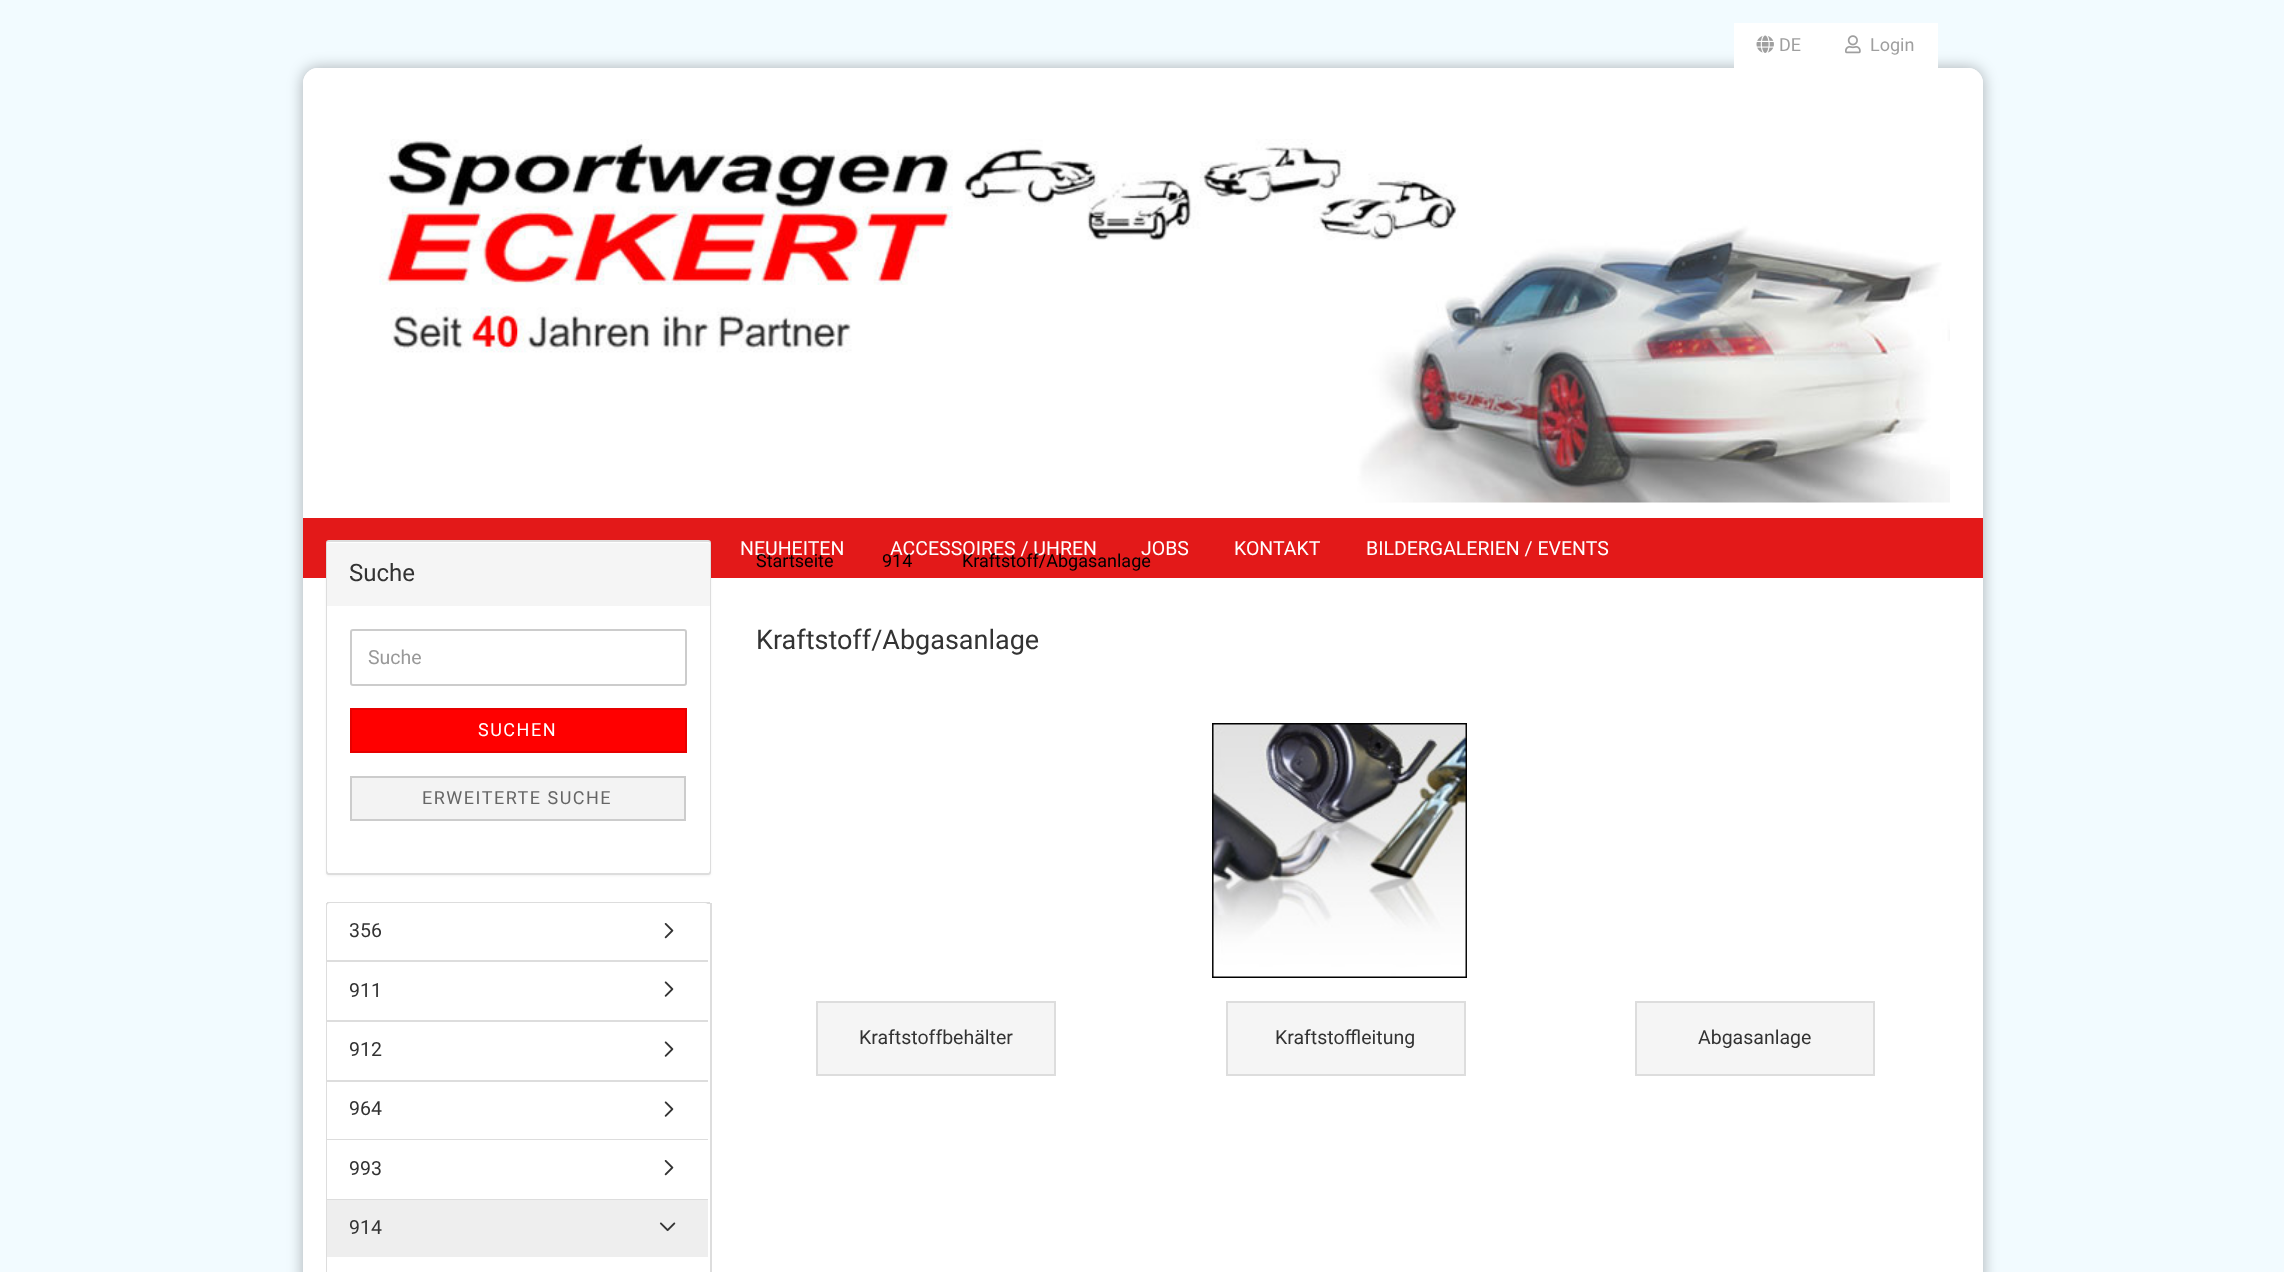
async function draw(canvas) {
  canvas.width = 2284
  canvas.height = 1272
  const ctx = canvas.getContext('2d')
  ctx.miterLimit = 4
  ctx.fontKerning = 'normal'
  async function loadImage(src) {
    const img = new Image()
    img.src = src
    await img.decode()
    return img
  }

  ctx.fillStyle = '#f2fbff'
  ctx.fillRect(0, 0, 2284, 1272)
  ctx.fillStyle = '#0000004d'
  ctx.filter = 'blur(7.5px)'
  ctx.beginPath()
  ctx.roundRect(303, 68, 1680, 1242, 15)
  ctx.fill()
  ctx.filter = 'none'
  ctx.fillStyle = '#fff'
  ctx.beginPath()
  ctx.roundRect(303, 68, 1680, 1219, 15)
  ctx.fill()
  ctx.beginPath()
  ctx.roundRect(303, 68, 1680, 210, [15, 15, 3, 3])
  ctx.fill()
  ctx.fillRect(1734, 23, 204, 45)
  ctx.drawImage(await loadImage('image0.png'), 1756, 35, 18, 18)
  ctx.font = '18px Roboto'
  ctx.fillStyle = '#9f9f9f'
  ctx.fillText('DE', 1779, 51)
  ctx.drawImage(await loadImage('image1.png'), 1845, 35, 16, 19)
  ctx.fillText('Login', 1870, 51)
  ctx.drawImage(await loadImage('image2.png'), 379, 139, 1571, 364)
  ctx.fillStyle = '#e31919'
  ctx.fillRect(303, 518, 1680, 60)
  ctx.font = '19.5px Roboto'
  ctx.fillStyle = '#fff'
  ctx.fillText('NEUHEITEN', 740, 555)
  ctx.fillText('ACCESSOIRES / UHREN', 890, 555)
  ctx.fillText('JOBS', 1141, 555)
  ctx.fillText('KONTAKT', 1234, 555)
  ctx.fillText('BILDERGALERIEN / EVENTS', 1366, 555)
  ctx.fillStyle = '#0000000d'
  ctx.filter = 'blur(1px)'
  ctx.beginPath()
  ctx.roundRect(326, 542, 385, 334, 3)
  ctx.fill()
  ctx.filter = 'none'
  ctx.fillStyle = '#fff'
  ctx.beginPath()
  ctx.roundRect(327, 541, 383, 333, 2)
  ctx.fill()
  ctx.strokeStyle = '#ddd'
  ctx.lineWidth = 2
  ctx.stroke()
  ctx.fillStyle = '#f5f5f5'
  ctx.beginPath()
  ctx.roundRect(327, 542, 383, 64, [1.5, 1.5, 0, 0])
  ctx.fill()
  ctx.fillStyle = '#fff'
  ctx.beginPath()
  ctx.moveTo(328, 543)
  ctx.lineTo(708, 543)
  ctx.lineTo(710, 544)
  ctx.bezierCurveTo(710, 543, 710, 542, 708, 542)
  ctx.lineTo(328, 542)
  ctx.bezierCurveTo(327, 542, 327, 543, 327, 544)
  ctx.closePath()
  ctx.fill()
  ctx.font = '24px Roboto'
  ctx.fillStyle = '#333'
  ctx.fillText('Suche', 349, 581)
  ctx.fillStyle = '#fff'
  ctx.beginPath()
  ctx.roundRect(327, 606, 383, 267, [0, 0, 3, 3])
  ctx.fill()
  ctx.beginPath()
  ctx.roundRect(351, 630, 335, 55, 2)
  ctx.strokeStyle = '#ccc'
  ctx.stroke()
  ctx.font = '19.5px Roboto'
  ctx.fillStyle = '#999'
  ctx.fillText('Suche', 368, 664)
  ctx.fillStyle = '#f00'
  ctx.beginPath()
  ctx.rect(351, 709, 335, 43)
  ctx.fill()
  ctx.strokeStyle = '#e60000'
  ctx.stroke()
  ctx.letterSpacing = '1.5px'
  ctx.font = '18px Roboto'
  ctx.fillStyle = '#fff'
  ctx.fillText('SUCHEN', 478, 736)
  ctx.fillStyle = '#f3f3f3'
  ctx.beginPath()
  ctx.rect(351, 777, 334, 43)
  ctx.fill()
  ctx.strokeStyle = '#ccc'
  ctx.stroke()
  ctx.fillStyle = '#666'
  ctx.fillText('ERWEITERTE SUCHE', 422, 804)
  ctx.fillStyle = '#ddd'
  ctx.fillRect(327, 902, 383, 2)
  ctx.fillRect(710, 903, 2, 369)
  ctx.fillRect(326, 903, 2, 369)
  ctx.fillRect(327, 960, 381, 2)
  ctx.fillStyle = '#fff'
  ctx.beginPath()
  ctx.roundRect(327, 903, 381, 57, [3, 3, 0, 0])
  ctx.fill()
  ctx.letterSpacing = '0px'
  ctx.font = '19.5px Roboto'
  ctx.fillStyle = '#333'
  ctx.fillText('356', 349, 937)
  ctx.drawImage(await loadImage('image3.png'), 664, 923, 10, 16)
  ctx.fillStyle = '#ddd'
  ctx.fillRect(327, 1020, 381, 2)
  ctx.fillStyle = '#fff'
  ctx.fillRect(327, 962, 1, 58)
  ctx.fillStyle = '#333'
  ctx.fillText('911', 349, 997)
  ctx.drawImage(await loadImage('image4.png'), 664, 981, 10, 16)
  ctx.fillStyle = '#ddd'
  ctx.fillRect(327, 1080, 381, 2)
  ctx.fillStyle = '#fff'
  ctx.fillRect(327, 1022, 1, 58)
  ctx.fillStyle = '#333'
  ctx.fillText('912', 349, 1056)
  ctx.drawImage(await loadImage('image4.png'), 664, 1041, 10, 16)
  ctx.fillStyle = '#ddd'
  ctx.fillRect(327, 1139, 381, 1)
  ctx.fillStyle = '#fff'
  ctx.fillRect(327, 1082, 1, 57)
  ctx.fillStyle = '#333'
  ctx.fillText('964', 349, 1115)
  ctx.drawImage(await loadImage('image4.png'), 664, 1101, 10, 16)
  ctx.fillStyle = '#ddd'
  ctx.fillRect(327, 1199, 381, 1)
  ctx.fillStyle = '#fff'
  ctx.fillRect(327, 1140, 1, 59)
  ctx.fillStyle = '#333'
  ctx.fillText('993', 349, 1175)
  ctx.drawImage(await loadImage('image3.png'), 664, 1160, 10, 16)
  ctx.fillStyle = '#eee'
  ctx.fillRect(327, 1200, 381, 57)
  ctx.fillStyle = '#333'
  ctx.fillText('914', 349, 1234)
  ctx.drawImage(await loadImage('image5.png'), 659, 1222, 17, 10)
  ctx.fillStyle = '#fff'
  ctx.fillRect(327, 1257, 1, 15)
  ctx.font = '18px Roboto'
  ctx.fillStyle = '#000'
  ctx.fillText('Startseite', 756, 567)
  ctx.fillText('914', 882, 567)
  ctx.fillText('Kraftstoff/Abgasanlage', 962, 567)
  ctx.font = '27px Roboto'
  ctx.fillStyle = '#333'
  ctx.fillText('Kraftstoff/Abgasanlage', 756, 649)
  ctx.drawImage(await loadImage('image6.png'), 1212, 723, 255, 255)
  ctx.fillStyle = '#f5f5f5'
  ctx.beginPath()
  ctx.rect(817, 1002, 238, 73)
  ctx.fill()
  ctx.strokeStyle = '#ddd'
  ctx.stroke()
  ctx.font = '19.5px Roboto'
  ctx.fillStyle = '#333'
  ctx.fillText('Kraftstoffbehälter', 859, 1044)
  ctx.fillStyle = '#f5f5f5'
  ctx.beginPath()
  ctx.rect(1227, 1002, 238, 73)
  ctx.fill()
  ctx.stroke()
  ctx.fillStyle = '#333'
  ctx.fillText('Kraftstoffleitung', 1275, 1044)
  ctx.fillStyle = '#f5f5f5'
  ctx.beginPath()
  ctx.rect(1636, 1002, 238, 73)
  ctx.fill()
  ctx.stroke()
  ctx.fillStyle = '#333'
  ctx.fillText('Abgasanlage', 1698, 1044)
}

draw(document.querySelector('canvas'))
